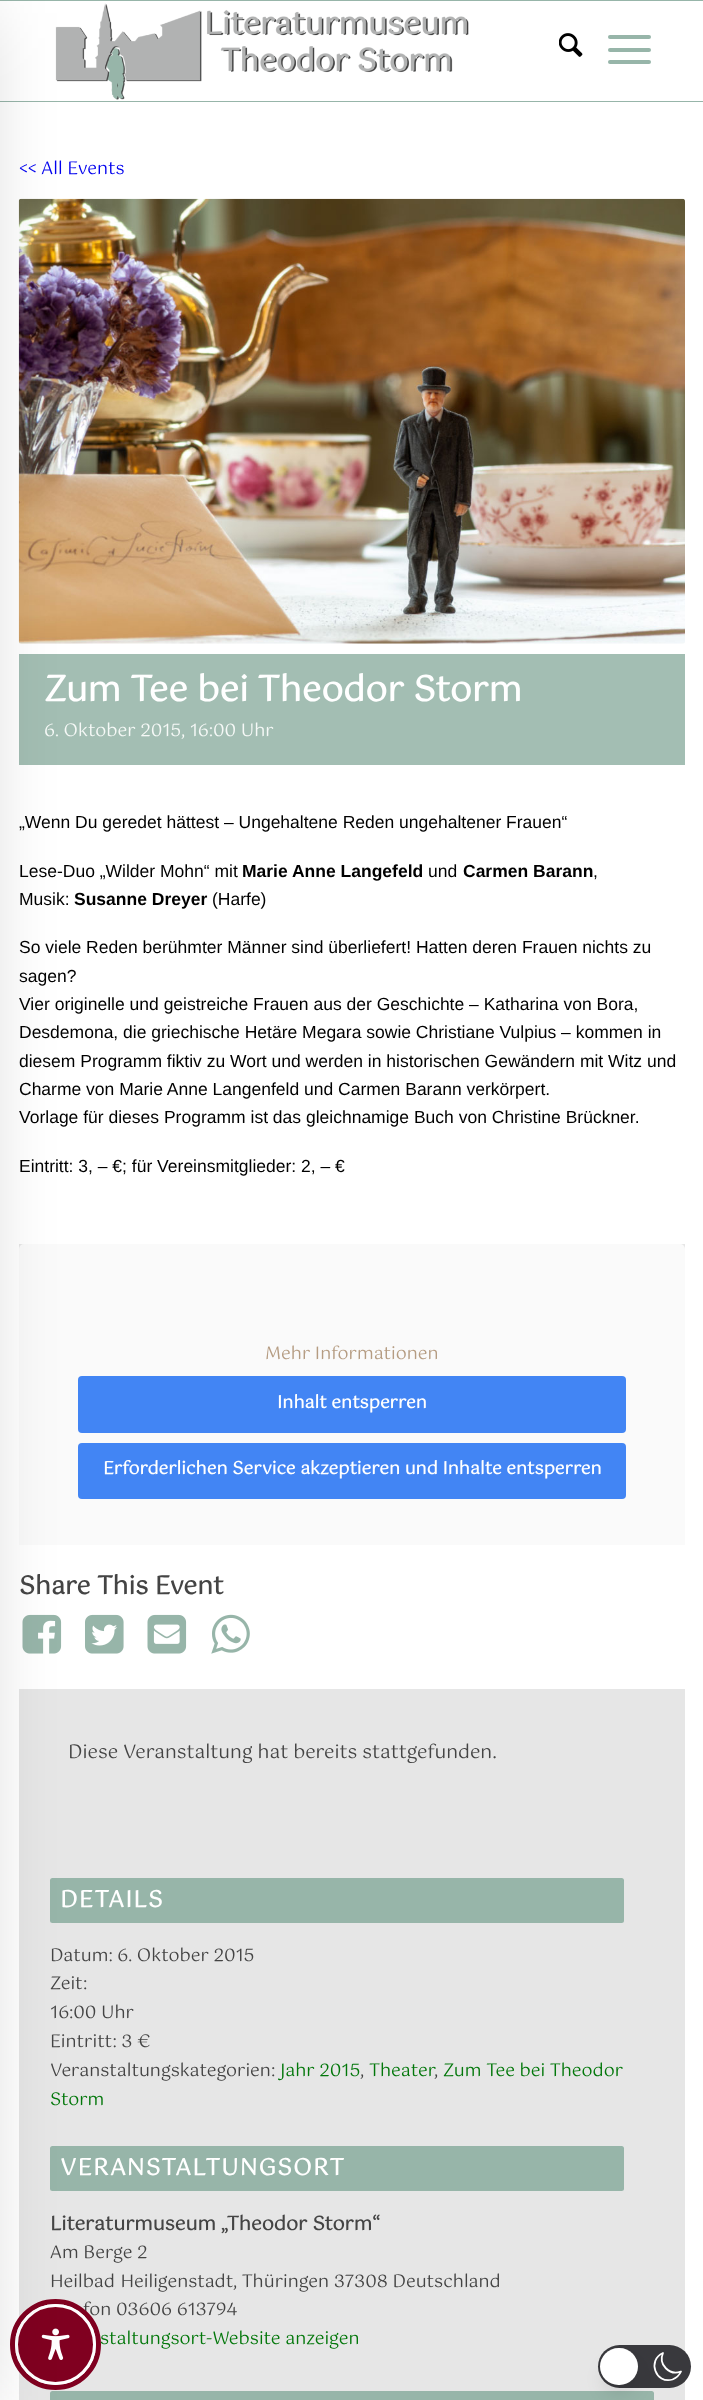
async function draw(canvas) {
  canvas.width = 703
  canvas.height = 2400
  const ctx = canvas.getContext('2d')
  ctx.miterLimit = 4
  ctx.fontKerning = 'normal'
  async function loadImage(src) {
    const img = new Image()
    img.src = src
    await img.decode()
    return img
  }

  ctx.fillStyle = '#fff'
  ctx.fillRect(0, 0, 703, 2400)
  ctx.fillStyle = '#97b5a9'
  ctx.fillRect(0, 0, 703, 1)
  ctx.fillRect(0, 101, 703, 1)
  ctx.drawImage(await loadImage('image0.png'), 55, 3, 414, 97)
  ctx.drawImage(await loadImage('image2.png'), 18, 198, 667, 446)
  ctx.fillStyle = '#a3beb3'
  ctx.fillRect(19, 654, 666, 111)
  ctx.fillStyle = '#e6e6e6'
  ctx.fillRect(19, 1244, 666, 5)
  ctx.fillStyle = '#fafafa'
  ctx.beginPath()
  ctx.roundRect(19, 1244, 666, 301, [5, 5, 0, 0])
  ctx.fill()
  ctx.fillStyle = '#4285f4'
  ctx.beginPath()
  ctx.roundRect(78, 1376, 548, 57, 4)
  ctx.fill()
  ctx.beginPath()
  ctx.roundRect(78, 1443, 548, 56, 4)
  ctx.fill()
  ctx.drawImage(await loadImage('image3.png'), 22, 1614, 40, 40)
  ctx.drawImage(await loadImage('image4.png'), 85, 1614, 39, 40)
  ctx.fillStyle = '#e6e6e6'
  ctx.fillRect(19, 1689, 666, 711)
  ctx.fillStyle = '#97b5a9'
  ctx.beginPath()
  ctx.roundRect(50, 1878, 574, 45, 2.5)
  ctx.fill()
  ctx.beginPath()
  ctx.roundRect(50, 2146, 574, 45, 2.5)
  ctx.fill()
  ctx.beginPath()
  ctx.roundRect(50, 2391, 604, 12, 2.5)
  ctx.fill()
  ctx.font = '17.5px Gotu'
  ctx.fillStyle = '#444'
  ctx.fillText('fon 03606 613794', 83, 2315)
  ctx.beginPath()
  ctx.arc(55.5, 2344.5, 43, 0, 2 * Math.PI)
  ctx.strokeStyle = '#800020'
  ctx.lineWidth = 5
  ctx.stroke()
  ctx.fillStyle = '#800020'
  ctx.beginPath()
  ctx.arc(55.5, 2344.5, 39, 0, 2 * Math.PI)
  ctx.fill()
  ctx.strokeStyle = '#fff'
  ctx.lineWidth = 3
  ctx.stroke()
  ctx.drawImage(await loadImage('image7.png'), 41, 2328, 29, 32)
  ctx.fillStyle = '#00000033'
  ctx.filter = 'blur(37.5px)'
  ctx.beginPath()
  ctx.rect(-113, 13, 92, 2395)
  ctx.fill()
  ctx.filter = 'none'
  ctx.drawImage(await loadImage('image1.png'), 559, 33, 24, 24)
  ctx.fillStyle = '#97b5a9'
  ctx.beginPath()
  ctx.roundRect(608, 48, 43, 4, 2)
  ctx.fill()
  ctx.beginPath()
  ctx.roundRect(608, 35, 43, 4, 2)
  ctx.fill()
  ctx.beginPath()
  ctx.roundRect(608, 60, 43, 4, 2)
  ctx.fill()
  ctx.fillStyle = '#00e'
  ctx.fillText('<< All Events', 19, 174)
  ctx.font = 'bold 35px Gotu'
  ctx.fillStyle = '#fff'
  ctx.fillText('Zum Tee bei Theodor Storm', 44, 701)
  ctx.font = '17.5px Gotu'
  ctx.fillStyle = '#f6f9f7'
  ctx.fillText('6. Oktober 2015, 16:00 Uhr', 44, 736)
  ctx.font = '17.5px Liberation Sans'
  ctx.fillStyle = '#000'
  ctx.fillText('„Wenn Du geredet hättest – Ungehaltene Reden ungehaltener Frauen“', 19, 828)
  ctx.fillText('Lese-Duo „Wilder Mohn“ mit', 19, 877)
  ctx.font = 'bold 17.5px Liberation Sans'
  ctx.fillText('Marie Anne Langefeld', 242, 877)
  ctx.font = '17.5px Liberation Sans'
  ctx.fillText('und', 428, 877)
  ctx.font = 'bold 17.5px Liberation Sans'
  ctx.fillText('Carmen Barann', 463, 877)
  ctx.font = '17.5px Liberation Sans'
  ctx.fillText(',', 593, 877)
  ctx.fillText('Musik:', 19, 905)
  ctx.font = 'bold 17.5px Liberation Sans'
  ctx.fillText('Susanne Dreyer', 74, 905)
  ctx.font = '17.5px Liberation Sans'
  ctx.fillText('(Harfe)', 212, 905)
  ctx.fillText('So viele Reden berühmter Männer sind überliefert! Hatten deren Frauen nichts zu', 19, 953)
  ctx.fillText('sagen?', 19, 982)
  ctx.fillText('Vier originelle und geistreiche Frauen aus der Geschichte – Katharina von Bora,', 19, 1010)
  ctx.fillText('Desdemona, die griechische Hetäre Megara sowie Christiane Vulpius – kommen in', 19, 1038)
  ctx.fillText('diesem Programm fiktiv zu Wort und werden in historischen Gewändern mit Witz und', 19, 1067)
  ctx.fillText('Charme von Marie Anne Langenfeld und Carmen Barann verkörpert.', 19, 1095)
  ctx.fillText('Vorlage für dieses Programm ist das gleichnamige Buch von Christine Brückner.', 19, 1123)
  ctx.fillText('Eintritt: 3, – €; für Vereinsmitglieder: 2, – €', 19, 1172)
  ctx.font = '17.5px Gotu'
  ctx.fillStyle = '#b59c82'
  ctx.fillText('Mehr Informationen', 265, 1359)
  ctx.font = 'bold 17.5px Gotu'
  ctx.fillStyle = '#fff'
  ctx.fillText('Inhalt entsperren', 277, 1408)
  ctx.fillText('Erforderlichen Service akzeptieren und Inhalte entsperren', 103, 1474)
  ctx.font = 'bold 25px Gotu'
  ctx.fillStyle = '#444'
  ctx.fillText('Share This Event', 19, 1594)
  ctx.drawImage(await loadImage('image5.png'), 147, 1614, 40, 40)
  ctx.drawImage(await loadImage('image6.png'), 211, 1614, 39, 40)
  ctx.font = '18.75px Gotu'
  ctx.fillText('Diese Veranstaltung hat bereits stattgefunden.', 68, 1758)
  ctx.letterSpacing = '1.25px'
  ctx.font = 'bold 22.75px Gotu'
  ctx.fillStyle = '#fff'
  ctx.fillText('DETAILS', 60, 1907)
  ctx.letterSpacing = '0px'
  ctx.font = '17.5px Gotu'
  ctx.fillStyle = '#444'
  ctx.fillText('Datum: 6. Oktober 2015', 50, 1961)
  ctx.fillText('Zeit:', 50, 1989)
  ctx.fillText('16:00 Uhr', 50, 2018)
  ctx.fillText('Eintritt: 3 €', 50, 2047)
  ctx.fillText('Veranstaltungskategorien:', 50, 2076)
  ctx.fillStyle = '#02770a'
  ctx.fillText('Jahr 2015', 280, 2076)
  ctx.fillStyle = '#444'
  ctx.fillText(',', 360, 2076)
  ctx.fillStyle = '#02770a'
  ctx.fillText('Theater', 369, 2076)
  ctx.fillText('Zum Tee bei Theodor', 443, 2076)
  ctx.fillStyle = '#444'
  ctx.fillText(',', 434, 2076)
  ctx.fillStyle = '#02770a'
  ctx.fillText('Storm', 50, 2105)
  ctx.letterSpacing = '1.25px'
  ctx.font = 'bold 22.75px Gotu'
  ctx.fillStyle = '#fff'
  ctx.fillText('VERANSTALTUNGSORT', 60, 2175)
  ctx.letterSpacing = '0px'
  ctx.font = 'bold 19.25px Gotu'
  ctx.fillStyle = '#444'
  ctx.fillText('Literaturmuseum „Theodor Storm“', 50, 2230)
  ctx.font = '17.5px Gotu'
  ctx.fillText('Am Berge 2', 50, 2258)
  ctx.wordSpacing = '1px'
  ctx.fillText('Heilbad Heiligenstadt', 50, 2287)
  ctx.wordSpacing = '0px'
  ctx.fillText(', Thüringen 37308 Deutschland', 233, 2287)
  ctx.fillStyle = '#02770a'
  ctx.fillText('staltungsort-Website anzeigen', 100, 2344)
  ctx.fillStyle = '#39393d'
  ctx.beginPath()
  ctx.roundRect(598, 2345, 93, 43, 21.5)
  ctx.fill()
  ctx.beginPath()
  ctx.moveTo(681, 2371.5)
  ctx.bezierCurveTo(669.5, 2376, 658, 2364.5, 663, 2353)
  ctx.bezierCurveTo(647, 2360, 655.5, 2384.5, 672.5, 2379.5)
  ctx.bezierCurveTo(676, 2378, 679.5, 2375, 681, 2371.5)
  ctx.closePath()
  ctx.lineWidth = 1.8
  ctx.lineCap = 'round'
  ctx.lineJoin = 'round'
  ctx.stroke()
  ctx.fillStyle = '#0000001a'
  ctx.filter = 'blur(9.5px)'
  ctx.beginPath()
  ctx.roundRect(604, 2364, 30, 30, 15)
  ctx.fill()
  ctx.filter = 'none'
  ctx.fillStyle = '#fff'
  ctx.beginPath()
  ctx.roundRect(600, 2348, 38, 37, 18.5)
  ctx.fill()
}

draw(document.querySelector('canvas'))
